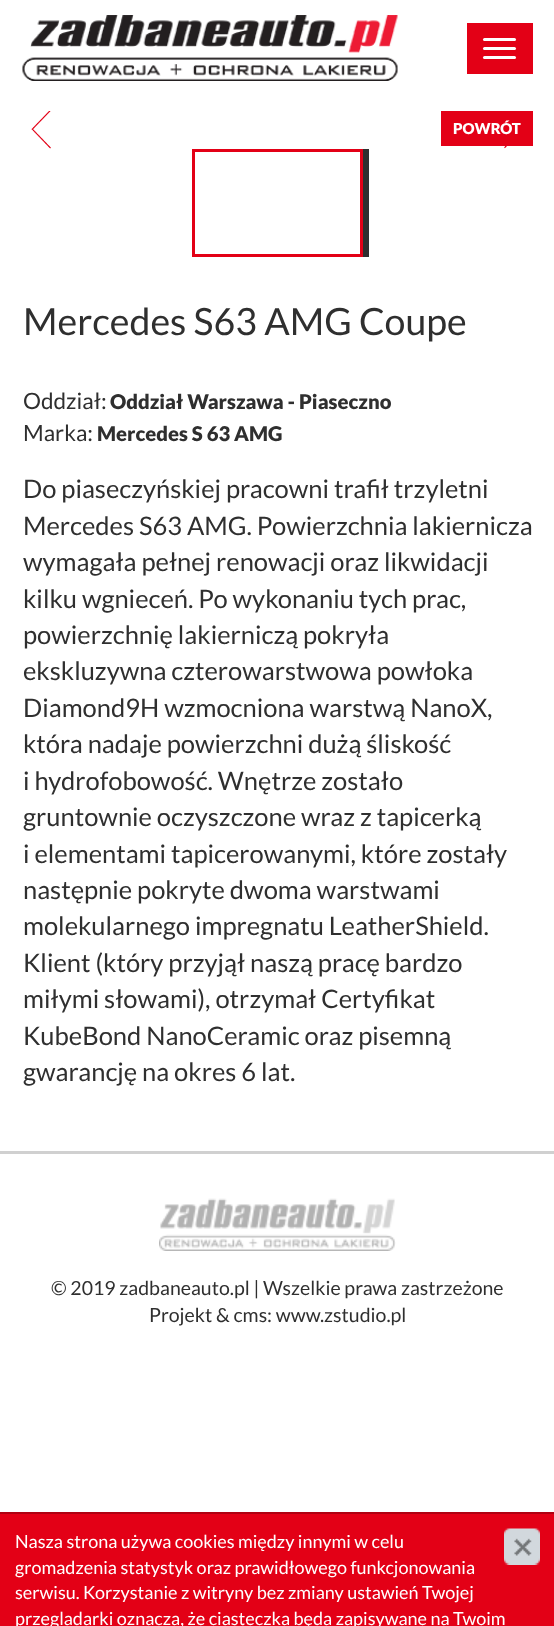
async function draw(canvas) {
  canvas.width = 554
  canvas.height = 1626
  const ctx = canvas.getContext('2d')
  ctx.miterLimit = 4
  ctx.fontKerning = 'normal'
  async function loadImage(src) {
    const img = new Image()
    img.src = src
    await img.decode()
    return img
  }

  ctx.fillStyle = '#fff'
  ctx.fillRect(0, 0, 554, 1626)
  ctx.drawImage(await loadImage('image0.png'), 22, 15, 376, 66)
  ctx.fillStyle = '#e30016'
  ctx.fillRect(467, 23, 66, 51)
  ctx.fillStyle = '#fff'
  ctx.beginPath()
  ctx.roundRect(483, 38, 33, 3, 1.5)
  ctx.fill()
  ctx.beginPath()
  ctx.roundRect(483, 47, 33, 3, 1.5)
  ctx.fill()
  ctx.beginPath()
  ctx.roundRect(483, 56, 33, 3, 1.5)
  ctx.fill()
  ctx.drawImage(await loadImage('image1.png'), 31, 111, 20, 38)
  ctx.drawImage(await loadImage('image2.png'), 504, 146, 3, 3)
  ctx.fillStyle = '#e30016'
  ctx.fillRect(441, 111, 92, 35)
  ctx.font = '900 15px Lato'
  ctx.fillStyle = '#fff'
  ctx.fillText('POWRÓT', 453, 134)
  ctx.strokeStyle = '#e30016'
  ctx.lineWidth = 3
  ctx.strokeRect(193.5, 150.5, 168, 105)
  ctx.fillStyle = '#2f2f2f'
  ctx.fillRect(363, 149, 6, 108)
  ctx.font = '37.5px Lato'
  ctx.fillText('Mercedes S63 AMG Coupe', 23, 335)
  ctx.font = '22.5px Lato'
  ctx.fillText('Oddział:', 23, 409)
  ctx.font = '900 20.25px Lato'
  ctx.fillText('Oddział Warszawa - Piaseczno', 110, 409)
  ctx.font = '22.5px Lato'
  ctx.fillText('Marka:', 23, 441)
  ctx.font = '900 20.25px Lato'
  ctx.fillText('Mercedes S 63 AMG', 97, 441)
  ctx.font = '25.5px Lato'
  ctx.fillText('Do piaseczyńskiej pracowni trafił trzyletni', 23, 498)
  ctx.fillText('Mercedes S63 AMG. Powierzchnia lakiernicza', 23, 535)
  ctx.fillText('wymagała pełnej renowacji oraz likwidacji', 23, 571)
  ctx.fillText('kilku wgnieceń. Po wykonaniu tych prac,', 23, 608)
  ctx.fillText('powierzchnię lakierniczą pokryła', 23, 644)
  ctx.fillText('ekskluzywna czterowarstwowa powłoka', 23, 680)
  ctx.fillText('Diamond9H wzmocniona warstwą NanoX,', 23, 717)
  ctx.fillText('która nadaje powierzchni dużą śliskość', 23, 753)
  ctx.fillText('i hydrofobowość. Wnętrze zostało', 23, 790)
  ctx.fillText('gruntownie oczyszczone wraz z tapicerką', 23, 826)
  ctx.fillText('i elementami tapicerowanymi, które zostały', 23, 863)
  ctx.fillText('następnie pokryte dwoma warstwami', 23, 899)
  ctx.fillText('molekularnego impregnatu LeatherShield.', 23, 935)
  ctx.fillText('Klient (który przyjął naszą pracę bardzo', 23, 972)
  ctx.fillText('miłymi słowami), otrzymał Certyfikat', 23, 1008)
  ctx.fillText('KubeBond NanoCeramic oraz pisemną', 23, 1045)
  ctx.fillText('gwarancję na okres 6 lat.', 23, 1081)
  ctx.fillStyle = '#d0d0d0'
  ctx.fillRect(0, 1151, 554, 3)
  ctx.drawImage(await loadImage('image3.png'), 159, 1198, 237, 53)
  ctx.font = '19.5px Lato'
  ctx.fillStyle = '#2f2f2f'
  ctx.fillText('© 2019 zadbaneauto.pl | Wszelkie prawa zastrzeżone', 51, 1295)
  ctx.fillText('Projekt & cms: www.zstudio.pl', 149, 1322)
  ctx.fillStyle = '#e30016'
  ctx.fillRect(0, 1514, 554, 112)
  ctx.fillStyle = '#b00011'
  ctx.fillRect(0, 1512, 554, 2)
  ctx.font = '18px Lato'
  ctx.fillStyle = '#fff'
  ctx.fillText('Nasza strona używa cookies między innymi w celu', 15, 1548)
  ctx.drawImage(await loadImage('image4.png'), 504, 1528, 36, 37)
  ctx.fillText('gromadzenia statystyk oraz prawidłowego funkcjonowania', 15, 1574)
  ctx.fillText('serwisu. Korzystanie z witryny bez zmiany ustawień Twojej', 15, 1599)
  ctx.fillText('przegladarki oznacza, że ciasteczka będa zapisywane na Twoim', 15, 1625)
}

draw(document.querySelector('canvas'))
